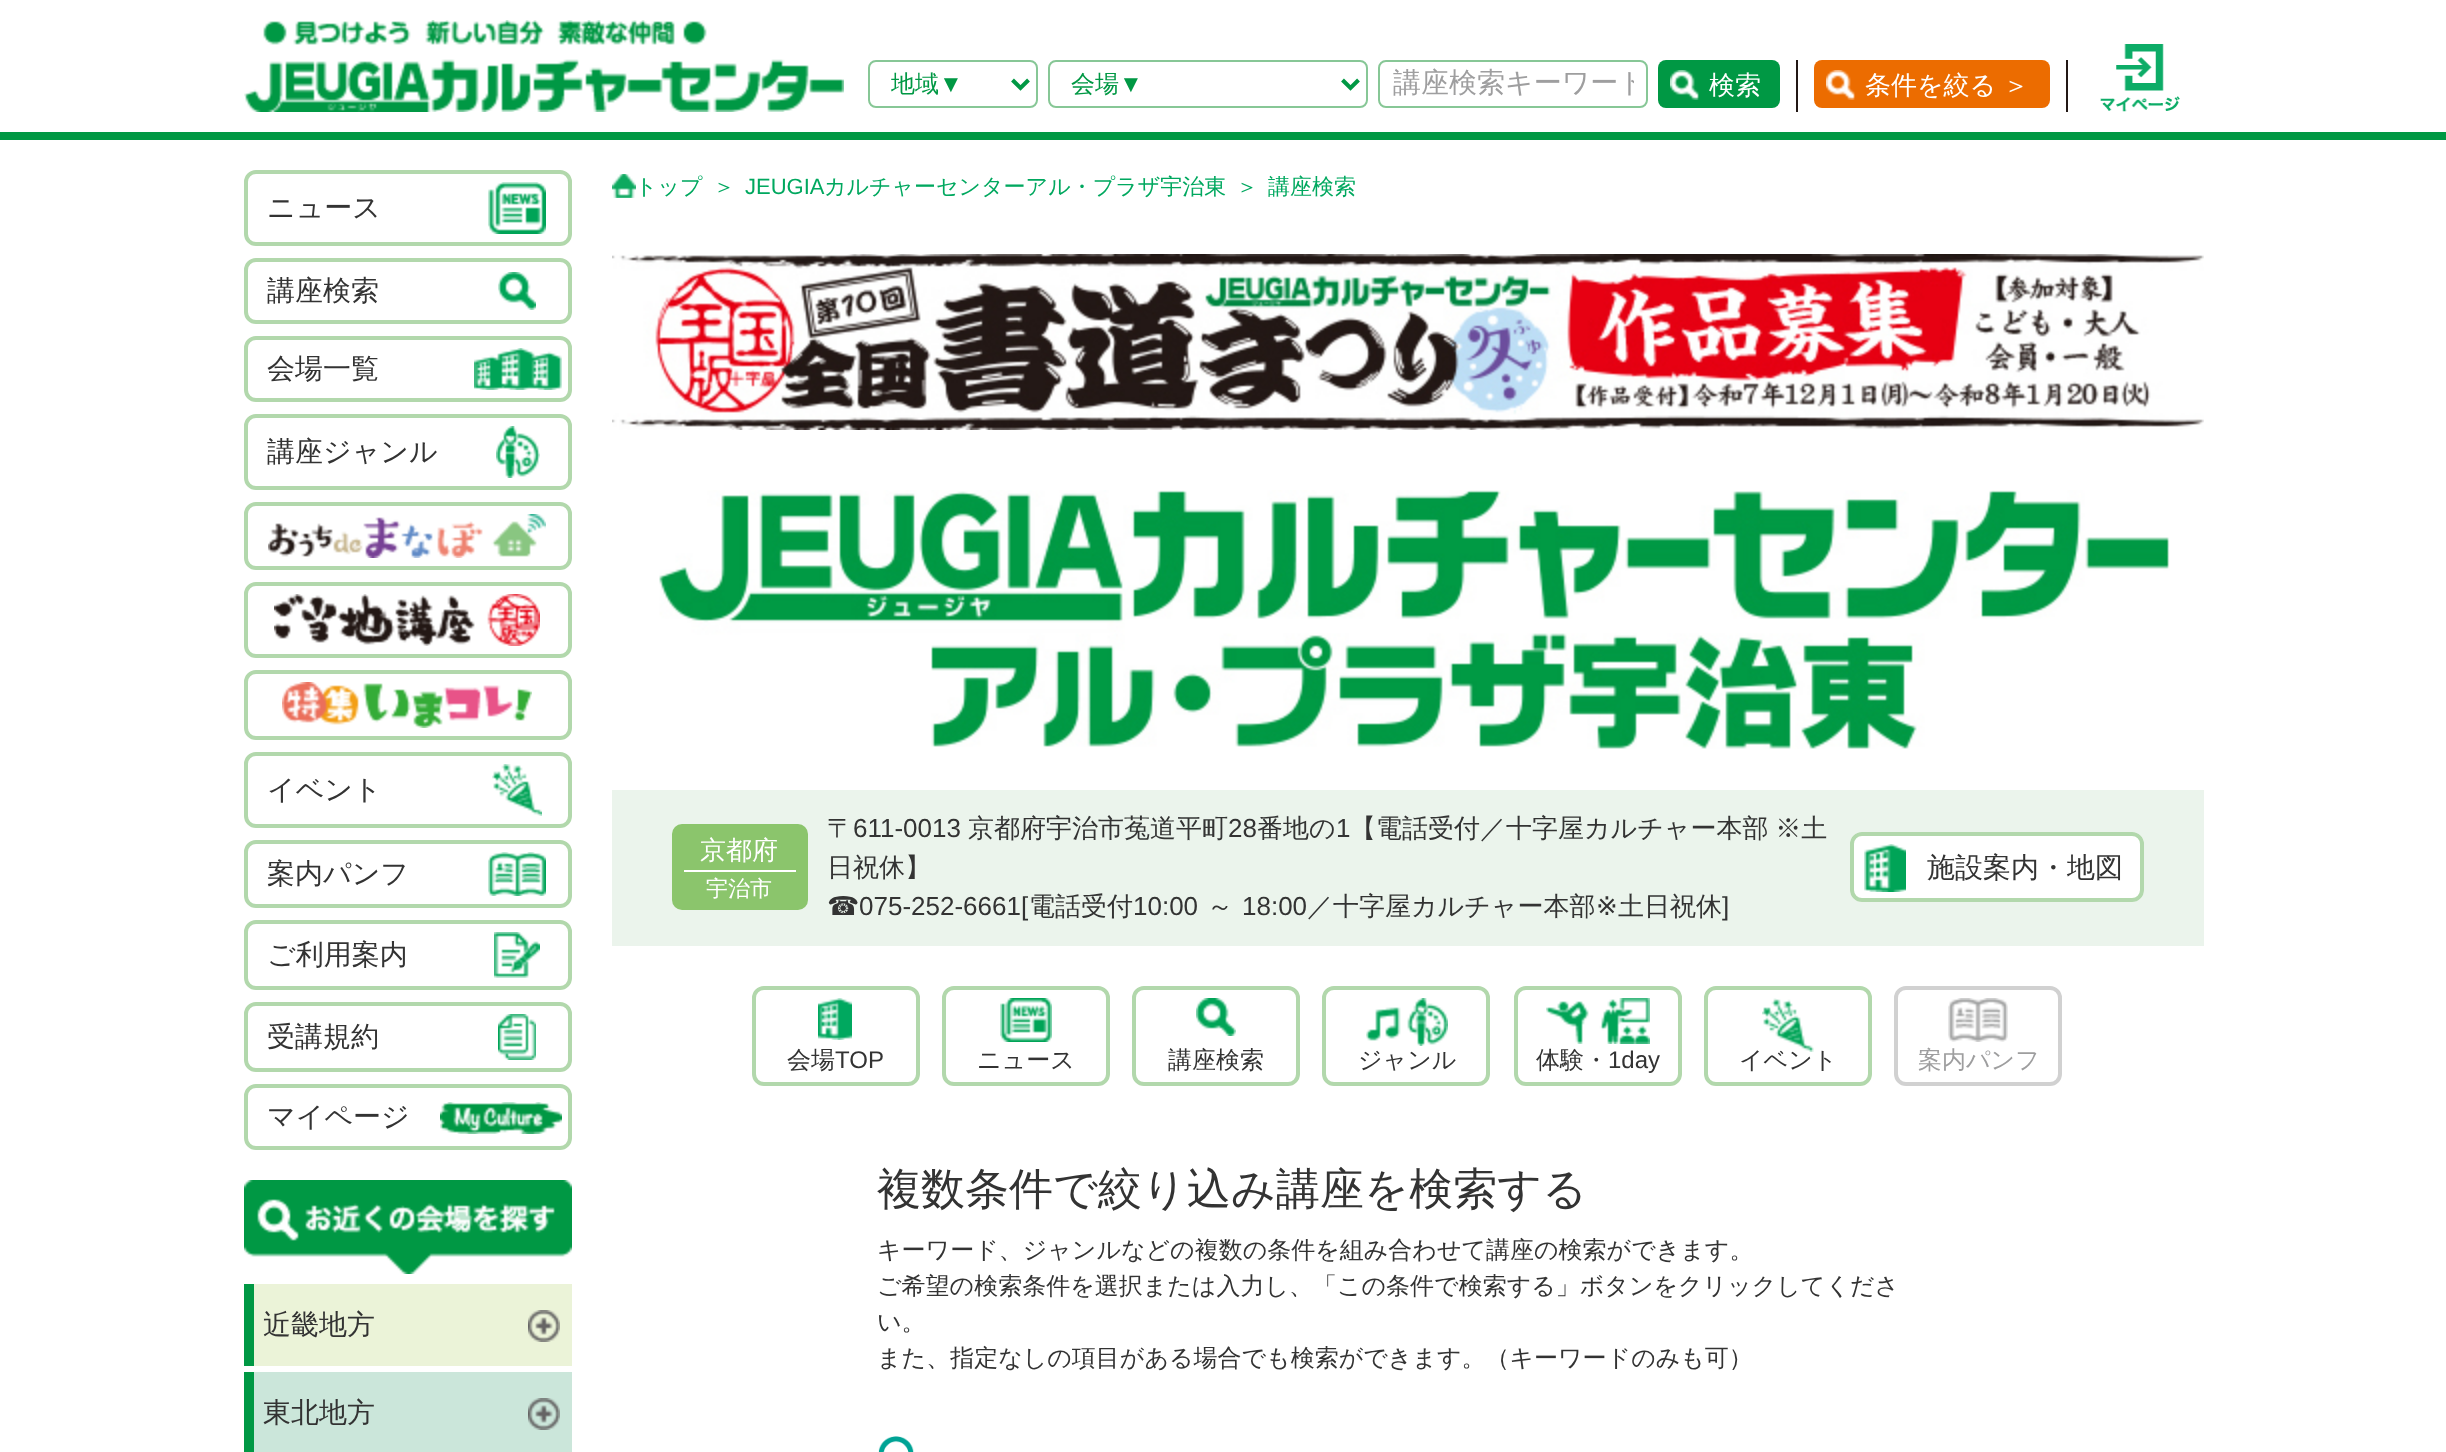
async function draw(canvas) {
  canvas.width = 2446
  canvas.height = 1452
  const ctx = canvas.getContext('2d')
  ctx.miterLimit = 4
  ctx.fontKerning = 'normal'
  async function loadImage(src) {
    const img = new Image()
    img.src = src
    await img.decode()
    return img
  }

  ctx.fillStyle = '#fff'
  ctx.fillRect(0, 0, 2446, 1452)
  ctx.fillStyle = '#009844'
  ctx.fillRect(0, 132, 2446, 8)
  ctx.drawImage(await loadImage('image0.png'), 244, 20, 600, 92)
  ctx.fillStyle = '#231815'
  ctx.fillRect(1796, 60, 2, 52)
  ctx.beginPath()
  ctx.roundRect(869, 61, 168, 46, 7)
  ctx.strokeStyle = '#87c796'
  ctx.lineWidth = 2
  ctx.stroke()
  ctx.beginPath()
  ctx.moveTo(1012.5, 80)
  ctx.lineTo(1020.5, 88)
  ctx.lineTo(1028.5, 80)
  ctx.strokeStyle = '#009844'
  ctx.lineWidth = 4
  ctx.stroke()
  ctx.font = '500 24px WenQuanYi Zen Hei'
  ctx.fillStyle = '#009844'
  ctx.fillText('地域', 891, 92)
  ctx.font = '24px Liberation Sans'
  ctx.fillText('▼', 939, 92)
  ctx.beginPath()
  ctx.roundRect(1049, 61, 318, 46, 7)
  ctx.strokeStyle = '#87c796'
  ctx.lineWidth = 2
  ctx.stroke()
  ctx.beginPath()
  ctx.moveTo(1342.5, 80)
  ctx.lineTo(1350.5, 88)
  ctx.lineTo(1358.5, 80)
  ctx.strokeStyle = '#009844'
  ctx.lineWidth = 4
  ctx.stroke()
  ctx.font = '500 24px WenQuanYi Zen Hei'
  ctx.fillText('会場', 1071, 92)
  ctx.font = '24px Liberation Sans'
  ctx.fillText('▼', 1119, 92)
  ctx.beginPath()
  ctx.roundRect(1379, 61, 268, 46, 7)
  ctx.strokeStyle = '#87c796'
  ctx.lineWidth = 2
  ctx.stroke()
  ctx.save()
  ctx.beginPath()
  ctx.rect(1392, 66, 242, 36)
  ctx.clip()
  ctx.font = '500 28px WenQuanYi Zen Hei'
  ctx.fillStyle = '#9e9e9f'
  ctx.fillText('講座検索キーワード', 1393, 92)
  ctx.restore()
  ctx.beginPath()
  ctx.roundRect(1658, 60, 122, 48, 8)
  ctx.fill()
  ctx.drawImage(await loadImage('image1.png'), 1670, 70, 29, 30)
  ctx.font = '500 26px WenQuanYi Zen Hei'
  ctx.fillStyle = '#fff'
  ctx.fillText('検索', 1709, 94)
  ctx.fillStyle = '#231815'
  ctx.fillRect(2066, 60, 2, 52)
  ctx.fillStyle = '#ec6c00'
  ctx.beginPath()
  ctx.roundRect(1814, 60, 236, 48, 8)
  ctx.fill()
  ctx.drawImage(await loadImage('image2.png'), 1826, 70, 29, 30)
  ctx.wordSpacing = '-1px'
  ctx.fillStyle = '#fff'
  ctx.fillText('条件を絞る ＞', 1865, 94)
  ctx.drawImage(await loadImage('image3.png'), 2100, 44, 80, 68)
  ctx.beginPath()
  ctx.roundRect(246, 172, 324, 72, 10)
  ctx.strokeStyle = '#b2d8ac'
  ctx.lineWidth = 4
  ctx.stroke()
  ctx.wordSpacing = '0px'
  ctx.font = '500 28px WenQuanYi Zen Hei'
  ctx.fillStyle = '#333'
  ctx.fillText('ニュース', 267, 217)
  ctx.drawImage(await loadImage('image4.png'), 488, 182, 58, 52)
  ctx.beginPath()
  ctx.roundRect(246, 260, 324, 62, 10)
  ctx.stroke()
  ctx.fillText('講座検索', 267, 300)
  ctx.drawImage(await loadImage('image5.png'), 498, 272, 38, 38)
  ctx.beginPath()
  ctx.roundRect(246, 338, 324, 62, 10)
  ctx.stroke()
  ctx.fillText('会場一覧', 267, 378)
  ctx.drawImage(await loadImage('image6.png'), 474, 348, 88, 42)
  ctx.beginPath()
  ctx.roundRect(246, 416, 324, 72, 10)
  ctx.stroke()
  ctx.fillText('講座ジャンル', 267, 461)
  ctx.drawImage(await loadImage('image7.png'), 496, 426, 44, 52)
  ctx.beginPath()
  ctx.roundRect(246, 504, 324, 64, 10)
  ctx.stroke()
  ctx.drawImage(await loadImage('image8.png'), 268, 514, 278, 44)
  ctx.beginPath()
  ctx.roundRect(246, 584, 324, 72, 10)
  ctx.stroke()
  ctx.drawImage(await loadImage('image9.png'), 274, 594, 266, 52)
  ctx.beginPath()
  ctx.roundRect(246, 672, 324, 66, 10)
  ctx.stroke()
  ctx.drawImage(await loadImage('image10.png'), 282, 682, 250, 46)
  ctx.beginPath()
  ctx.roundRect(246, 754, 324, 72, 10)
  ctx.stroke()
  ctx.fillText('イベント', 267, 799)
  ctx.drawImage(await loadImage('image11.png'), 492, 764, 50, 52)
  ctx.beginPath()
  ctx.roundRect(246, 842, 324, 64, 10)
  ctx.stroke()
  ctx.fillText('案内パンフ', 267, 883)
  ctx.drawImage(await loadImage('image12.png'), 488, 852, 58, 44)
  ctx.beginPath()
  ctx.roundRect(246, 922, 324, 66, 10)
  ctx.stroke()
  ctx.fillText('ご利用案内', 267, 964)
  ctx.drawImage(await loadImage('image13.png'), 494, 932, 46, 46)
  ctx.beginPath()
  ctx.roundRect(246, 1004, 324, 66, 10)
  ctx.stroke()
  ctx.fillText('受講規約', 267, 1046)
  ctx.drawImage(await loadImage('image14.png'), 498, 1014, 38, 46)
  ctx.beginPath()
  ctx.roundRect(246, 1086, 324, 62, 10)
  ctx.stroke()
  ctx.fillText('マイページ', 267, 1126)
  ctx.drawImage(await loadImage('image15.png'), 440, 1102, 122, 32)
  ctx.drawImage(await loadImage('image16.png'), 244, 1180, 328, 94)
  ctx.fillStyle = '#ebf3d8'
  ctx.fillRect(254, 1284, 318, 82)
  ctx.drawImage(await loadImage('image17.png'), 528, 1310, 32, 32)
  ctx.fillStyle = '#009844'
  ctx.fillRect(244, 1284, 10, 82)
  ctx.fillStyle = '#333'
  ctx.fillText('近畿地方', 263, 1334)
  ctx.fillStyle = '#cbe6da'
  ctx.fillRect(254, 1372, 318, 80)
  ctx.drawImage(await loadImage('image18.png'), 528, 1398, 32, 32)
  ctx.fillStyle = '#009844'
  ctx.fillRect(244, 1372, 10, 80)
  ctx.fillStyle = '#333'
  ctx.fillText('東北地方', 263, 1422)
  ctx.drawImage(await loadImage('image19.png'), 612, 174, 24, 24)
  ctx.font = '500 22px WenQuanYi Zen Hei'
  ctx.fillStyle = '#00a85f'
  ctx.fillText('トップ', 635, 194)
  ctx.fillText('＞', 713, 194)
  ctx.font = '22px Liberation Sans'
  ctx.fillText('JEUGIA', 745, 194)
  ctx.font = '500 22px WenQuanYi Zen Hei'
  ctx.fillText('カルチャーセンターアル・プラザ宇治東', 824, 194)
  ctx.fillText('＞', 1236, 194)
  ctx.fillText('講座検索', 1268, 194)
  ctx.drawImage(await loadImage('image20.png'), 612, 254, 1592, 176)
  ctx.drawImage(await loadImage('image21.png'), 659, 490, 1511, 259)
  ctx.fillStyle = '#ebf4ec'
  ctx.fillRect(612, 790, 1592, 156)
  ctx.fillStyle = '#8bc56c'
  ctx.beginPath()
  ctx.roundRect(672, 824, 136, 86, 10)
  ctx.fill()
  ctx.fillStyle = '#fff'
  ctx.fillRect(684, 870, 112, 2)
  ctx.font = '500 26px WenQuanYi Zen Hei'
  ctx.fillText('京都府', 700, 859)
  ctx.font = '500 22px WenQuanYi Zen Hei'
  ctx.fillText('宇治市', 706, 896)
  ctx.font = '500 26px WenQuanYi Zen Hei'
  ctx.fillStyle = '#333'
  ctx.fillText('〒', 827, 837)
  ctx.font = '26px Liberation Sans'
  ctx.fillText('611-0013', 853, 837)
  ctx.font = '500 26px WenQuanYi Zen Hei'
  ctx.fillText('京都府宇治市菟道平町', 968, 837)
  ctx.font = '26px Liberation Sans'
  ctx.fillText('28', 1228, 837)
  ctx.font = '500 26px WenQuanYi Zen Hei'
  ctx.fillText('番地の', 1257, 837)
  ctx.font = '26px Liberation Sans'
  ctx.fillText('1', 1336, 837)
  ctx.wordSpacing = '-1px'
  ctx.font = '500 26px WenQuanYi Zen Hei'
  ctx.fillText('【電話受付／十字屋カルチャー本部 ※土', 1350, 837)
  ctx.wordSpacing = '0px'
  ctx.fillText('日祝休】', 827, 876)
  ctx.font = '26px DejaVu Sans'
  ctx.fillText('☎︎', 827, 915)
  ctx.font = '26px Liberation Sans'
  ctx.fillText('075-252-6661[', 859, 915)
  ctx.font = '500 26px WenQuanYi Zen Hei'
  ctx.fillText('電話受付', 1029, 915)
  ctx.font = '26px Liberation Sans'
  ctx.fillText('10:00', 1133, 915)
  ctx.font = '500 26px WenQuanYi Zen Hei'
  ctx.fillText('～', 1207, 915)
  ctx.font = '26px Liberation Sans'
  ctx.fillText('18:00', 1242, 915)
  ctx.font = '500 26px WenQuanYi Zen Hei'
  ctx.fillText('／十字屋カルチャー本部', 1307, 915)
  ctx.font = '26px DejaVu Sans'
  ctx.fillText('※', 1596, 915)
  ctx.font = '500 26px WenQuanYi Zen Hei'
  ctx.fillText('土日祝休', 1618, 915)
  ctx.font = '26px Liberation Sans'
  ctx.fillText(']', 1722, 915)
  ctx.fillStyle = '#fff'
  ctx.beginPath()
  ctx.roundRect(1850, 832, 294, 70, 12)
  ctx.fill()
  ctx.drawImage(await loadImage('image22.png'), 1864, 844, 42, 48)
  ctx.beginPath()
  ctx.roundRect(1852, 834, 290, 66, 10)
  ctx.stroke()
  ctx.font = '500 28px WenQuanYi Zen Hei'
  ctx.fillStyle = '#333'
  ctx.fillText('施設案内・地図', 1927, 877)
  ctx.drawImage(await loadImage('image23.png'), 818, 998, 34, 42)
  ctx.beginPath()
  ctx.roundRect(754, 988, 164, 96, 10)
  ctx.stroke()
  ctx.font = '500 24px WenQuanYi Zen Hei'
  ctx.fillText('会場', 787, 1068)
  ctx.font = '24px Liberation Sans'
  ctx.fillText('TOP', 835, 1068)
  ctx.drawImage(await loadImage('image24.png'), 1000, 998, 52, 44)
  ctx.beginPath()
  ctx.roundRect(944, 988, 164, 96, 10)
  ctx.stroke()
  ctx.font = '500 24px WenQuanYi Zen Hei'
  ctx.fillText('ニュース', 977, 1068)
  ctx.drawImage(await loadImage('image25.png'), 1196, 998, 40, 38)
  ctx.beginPath()
  ctx.roundRect(1134, 988, 164, 96, 10)
  ctx.stroke()
  ctx.fillText('講座検索', 1168, 1068)
  ctx.drawImage(await loadImage('image26.png'), 1366, 998, 82, 48)
  ctx.beginPath()
  ctx.roundRect(1324, 988, 164, 96, 10)
  ctx.stroke()
  ctx.fillText('ジャンル', 1358, 1068)
  ctx.drawImage(await loadImage('image27.png'), 1546, 998, 104, 46)
  ctx.beginPath()
  ctx.roundRect(1516, 988, 164, 96, 10)
  ctx.stroke()
  ctx.fillText('体験・', 1536, 1068)
  ctx.font = '24px Liberation Sans'
  ctx.fillText('1day', 1608, 1068)
  ctx.drawImage(await loadImage('image28.png'), 1762, 998, 52, 54)
  ctx.beginPath()
  ctx.roundRect(1706, 988, 164, 96, 10)
  ctx.stroke()
  ctx.font = '500 24px WenQuanYi Zen Hei'
  ctx.fillText('イベント', 1739, 1068)
  ctx.drawImage(await loadImage('image29.png'), 1948, 998, 60, 44)
  ctx.beginPath()
  ctx.roundRect(1896, 988, 164, 96, 10)
  ctx.strokeStyle = '#d1d1d1'
  ctx.stroke()
  ctx.fillStyle = '#9e9e9f'
  ctx.fillText('案内パンフ', 1918, 1068)
  ctx.font = '500 44px WenQuanYi Zen Hei'
  ctx.fillStyle = '#333'
  ctx.fillText('複数条件で絞り込み講座を検索する', 877, 1204)
  ctx.font = '500 24px WenQuanYi Zen Hei'
  ctx.fillText('キーワード、ジャンルなどの複数の条件を組み合わせて講座の検索ができます。', 877, 1258)
  ctx.fillText('ご希望の検索条件を選択または入力し、「この条件で検索する」ボタンをクリックしてくださ', 877, 1294)
  ctx.fillText('い。', 877, 1330)
  ctx.fillText('また、指定なしの項目がある場合でも検索ができます。（キーワードのみも可）', 877, 1366)
  ctx.drawImage(await loadImage('image30.png'), 878, 1436, 36, 16)
}

draw(document.querySelector('canvas'))
